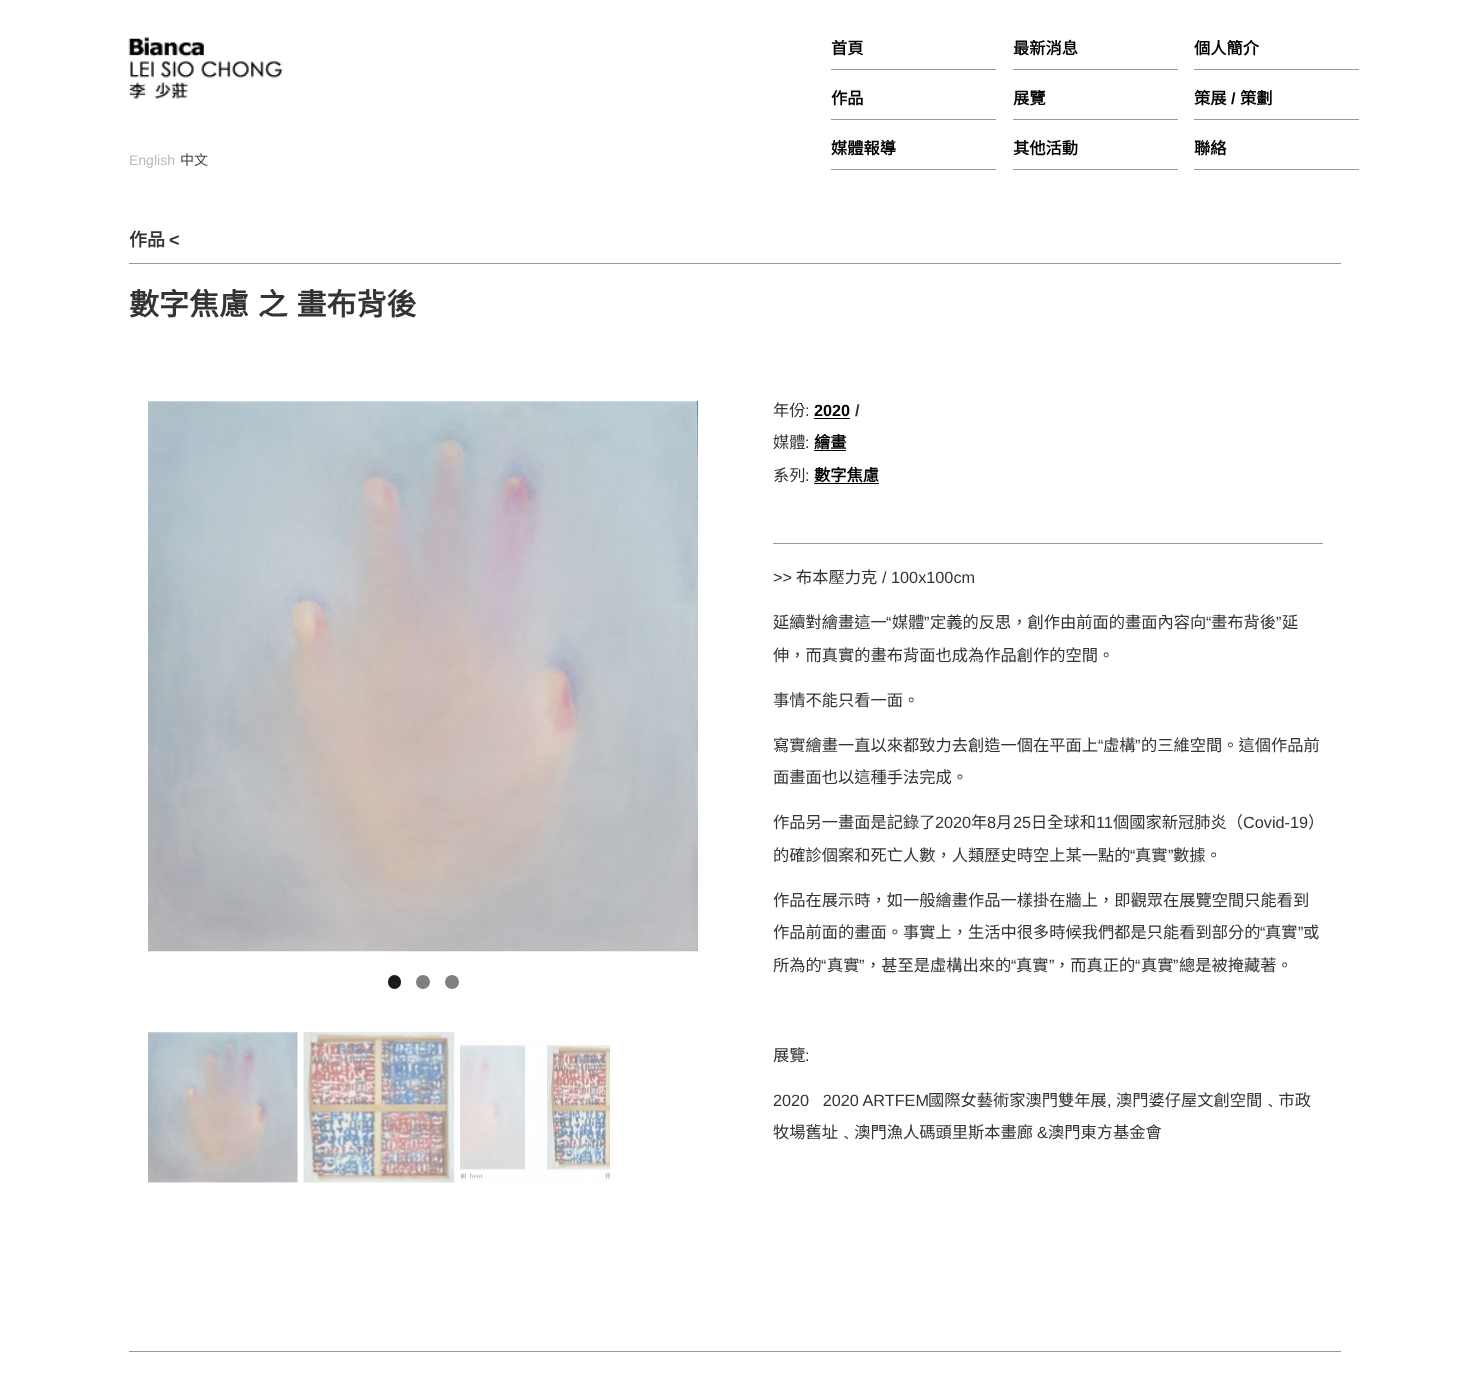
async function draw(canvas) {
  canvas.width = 1469
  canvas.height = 1394
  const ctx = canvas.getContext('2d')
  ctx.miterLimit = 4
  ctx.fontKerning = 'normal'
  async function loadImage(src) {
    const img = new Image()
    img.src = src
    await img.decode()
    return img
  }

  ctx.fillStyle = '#fff'
  ctx.fillRect(0, 0, 1469, 1394)
  ctx.drawImage(await loadImage('image0.png'), 128, 37, 155, 62)
  ctx.fillStyle = '#999'
  ctx.fillRect(831, 69, 165, 1)
  ctx.font = 'bold 16.25px Noto Sans CJK TC'
  ctx.fillStyle = '#000'
  ctx.fillText('首頁', 831, 54)
  ctx.fillStyle = '#999'
  ctx.fillRect(1013, 69, 165, 1)
  ctx.fillStyle = '#000'
  ctx.fillText('最新消息', 1013, 54)
  ctx.fillStyle = '#999'
  ctx.fillRect(1194, 69, 165, 1)
  ctx.fillStyle = '#000'
  ctx.fillText('個人簡介', 1194, 54)
  ctx.fillStyle = '#999'
  ctx.fillRect(831, 119, 165, 1)
  ctx.fillStyle = '#000'
  ctx.fillText('作品', 831, 104)
  ctx.fillStyle = '#999'
  ctx.fillRect(1013, 119, 165, 1)
  ctx.fillStyle = '#000'
  ctx.fillText('展覽', 1013, 104)
  ctx.fillStyle = '#999'
  ctx.fillRect(1194, 119, 165, 1)
  ctx.fillStyle = '#000'
  ctx.fillText('策展', 1194, 104)
  ctx.font = 'bold 16.25px Liberation Sans'
  ctx.fillText('/', 1231, 104)
  ctx.font = 'bold 16.25px Noto Sans CJK TC'
  ctx.fillText('策劃', 1240, 104)
  ctx.fillStyle = '#999'
  ctx.fillRect(831, 169, 165, 1)
  ctx.fillStyle = '#000'
  ctx.fillText('媒體報導', 831, 154)
  ctx.fillStyle = '#999'
  ctx.fillRect(1013, 169, 165, 1)
  ctx.fillStyle = '#000'
  ctx.fillText('其他活動', 1013, 154)
  ctx.fillStyle = '#999'
  ctx.fillRect(1194, 169, 165, 1)
  ctx.fillStyle = '#000'
  ctx.fillText('聯絡', 1194, 154)
  ctx.font = '14px Liberation Sans'
  ctx.fillStyle = '#b9b9b9'
  ctx.fillText('English', 129, 165)
  ctx.font = '14px Noto Sans CJK TC'
  ctx.fillStyle = '#444'
  ctx.fillText('中文', 180, 165)
  ctx.fillStyle = '#999'
  ctx.fillRect(129, 263, 1212, 1)
  ctx.font = 'bold 18px Noto Sans CJK TC'
  ctx.fillStyle = '#333'
  ctx.fillText('作品', 129, 246)
  ctx.font = 'bold 18px Liberation Sans'
  ctx.fillText('<', 169, 246)
  ctx.wordSpacing = '2px'
  ctx.font = 'bold 30px Noto Sans CJK TC'
  ctx.fillText('數字焦慮 之 畫布背後', 129, 315)
  ctx.drawImage(await loadImage('image1.png'), 148, 401, 550, 551)
  ctx.fillStyle = '#1a1a1a'
  ctx.beginPath()
  ctx.roundRect(388, 975, 13, 14, 6.5)
  ctx.fill()
  ctx.fillStyle = '#808080'
  ctx.beginPath()
  ctx.arc(423, 982, 7, 0, 2 * Math.PI)
  ctx.fill()
  ctx.beginPath()
  ctx.arc(452, 982, 7, 0, 2 * Math.PI)
  ctx.fill()
  ctx.drawImage(await loadImage('image2.png'), 148, 1032, 150, 151)
  ctx.drawImage(await loadImage('image3.png'), 303, 1032, 152, 151)
  ctx.drawImage(await loadImage('image4.png'), 460, 1042, 150, 140)
  ctx.wordSpacing = '0px'
  ctx.font = '16.25px Noto Sans CJK TC'
  ctx.fillStyle = '#333'
  ctx.fillText('年份', 773, 416)
  ctx.font = '16.25px Liberation Sans'
  ctx.fillText(':', 805, 416)
  ctx.font = 'bold 16.25px Liberation Sans'
  ctx.fillStyle = '#000'
  ctx.fillText('2020', 814, 416)
  ctx.fillRect(814, 418, 36, 1)
  ctx.fillStyle = '#333'
  ctx.fillText('/', 855, 416)
  ctx.font = '16.25px Noto Sans CJK TC'
  ctx.fillText('媒體', 773, 448)
  ctx.font = '16.25px Liberation Sans'
  ctx.fillText(':', 805, 448)
  ctx.font = 'bold 16.25px Noto Sans CJK TC'
  ctx.fillStyle = '#000'
  ctx.fillText('繪畫', 814, 448)
  ctx.fillRect(814, 450, 32, 1)
  ctx.font = '16.25px Noto Sans CJK TC'
  ctx.fillStyle = '#333'
  ctx.fillText('系列', 773, 481)
  ctx.font = '16.25px Liberation Sans'
  ctx.fillText(':', 805, 481)
  ctx.font = 'bold 16.25px Noto Sans CJK TC'
  ctx.fillStyle = '#000'
  ctx.fillText('數字焦慮', 814, 481)
  ctx.fillRect(814, 483, 65, 1)
  ctx.fillStyle = '#999'
  ctx.fillRect(773, 543, 550, 1)
  ctx.font = '16.25px Liberation Sans'
  ctx.fillStyle = '#333'
  ctx.fillText('>>', 773, 583)
  ctx.font = '16.25px Noto Sans CJK TC'
  ctx.fillText('布本壓力克', 796, 583)
  ctx.font = '16.25px Liberation Sans'
  ctx.fillText('/ 100x100cm', 882, 583)
  ctx.font = '16.25px Noto Sans CJK TC'
  ctx.fillText('延續對繪畫這一', 773, 628)
  ctx.font = '16.25px Liberation Sans'
  ctx.fillText('“', 886, 628)
  ctx.font = '16.25px Noto Sans CJK TC'
  ctx.fillText('媒體', 892, 628)
  ctx.font = '16.25px Liberation Sans'
  ctx.fillText('”', 924, 628)
  ctx.font = '16.25px Noto Sans CJK TC'
  ctx.fillText('定義的反思，創作由前面的畫面內容向', 930, 628)
  ctx.font = '16.25px Liberation Sans'
  ctx.fillText('“', 1206, 628)
  ctx.font = '16.25px Noto Sans CJK TC'
  ctx.fillText('畫布背後', 1211, 628)
  ctx.font = '16.25px Liberation Sans'
  ctx.fillText('”', 1276, 628)
  ctx.font = '16.25px Noto Sans CJK TC'
  ctx.fillText('延', 1282, 628)
  ctx.fillText('伸，而真實的畫布背面也成為作品創作的空間。', 773, 661)
  ctx.fillText('事情不能只看一面。', 773, 706)
  ctx.fillText('寫實繪畫一直以來都致力去創造一個在平面上', 773, 751)
  ctx.font = '16.25px Liberation Sans'
  ctx.fillText('“', 1098, 751)
  ctx.font = '16.25px Noto Sans CJK TC'
  ctx.fillText('虛構', 1103, 751)
  ctx.font = '16.25px Liberation Sans'
  ctx.fillText('”', 1135, 751)
  ctx.font = '16.25px Noto Sans CJK TC'
  ctx.fillText('的三維空間。這個作品前', 1141, 751)
  ctx.fillText('面畫面也以這種手法完成。', 773, 783)
  ctx.fillText('作品另一畫面是記錄了', 773, 828)
  ctx.font = '16.25px Liberation Sans'
  ctx.fillText('2020', 935, 828)
  ctx.font = '16.25px Noto Sans CJK TC'
  ctx.fillText('年', 971, 828)
  ctx.font = '16.25px Liberation Sans'
  ctx.fillText('8', 987, 828)
  ctx.font = '16.25px Noto Sans CJK TC'
  ctx.fillText('月', 996, 828)
  ctx.font = '16.25px Liberation Sans'
  ctx.fillText('25', 1013, 828)
  ctx.font = '16.25px Noto Sans CJK TC'
  ctx.fillText('日全球和', 1031, 828)
  ctx.font = '16.25px Liberation Sans'
  ctx.fillText('11', 1096, 828)
  ctx.font = '16.25px Noto Sans CJK TC'
  ctx.fillText('個國家新冠肺炎（', 1113, 828)
  ctx.font = '16.25px Liberation Sans'
  ctx.fillText('Covid-19', 1243, 828)
  ctx.font = '16.25px Noto Sans CJK TC'
  ctx.fillText('）', 1308, 828)
  ctx.fillText('的確診個案和死亡人數，人類歷史時空上某一點的', 773, 861)
  ctx.font = '16.25px Liberation Sans'
  ctx.fillText('“', 1130, 861)
  ctx.font = '16.25px Noto Sans CJK TC'
  ctx.fillText('真實', 1135, 861)
  ctx.font = '16.25px Liberation Sans'
  ctx.fillText('”', 1168, 861)
  ctx.font = '16.25px Noto Sans CJK TC'
  ctx.fillText('數據。', 1173, 861)
  ctx.fillText('作品在展示時，如一般繪畫作品一樣掛在牆上，即觀眾在展覽空間只能看到', 773, 906)
  ctx.fillText('作品前面的畫面。事實上，生活中很多時候我們都是只能看到部分的', 773, 938)
  ctx.font = '16.25px Liberation Sans'
  ctx.fillText('“', 1260, 938)
  ctx.font = '16.25px Noto Sans CJK TC'
  ctx.fillText('真實', 1265, 938)
  ctx.font = '16.25px Liberation Sans'
  ctx.fillText('”', 1298, 938)
  ctx.font = '16.25px Noto Sans CJK TC'
  ctx.fillText('或', 1303, 938)
  ctx.fillText('所為的', 773, 971)
  ctx.font = '16.25px Liberation Sans'
  ctx.fillText('“', 821, 971)
  ctx.font = '16.25px Noto Sans CJK TC'
  ctx.fillText('真實', 827, 971)
  ctx.font = '16.25px Liberation Sans'
  ctx.fillText('”', 859, 971)
  ctx.font = '16.25px Noto Sans CJK TC'
  ctx.fillText('，甚至是虛構出來的', 865, 971)
  ctx.font = '16.25px Liberation Sans'
  ctx.fillText('“', 1011, 971)
  ctx.font = '16.25px Noto Sans CJK TC'
  ctx.fillText('真實', 1016, 971)
  ctx.font = '16.25px Liberation Sans'
  ctx.fillText('”', 1049, 971)
  ctx.font = '16.25px Noto Sans CJK TC'
  ctx.fillText('，而真正的', 1054, 971)
  ctx.font = '16.25px Liberation Sans'
  ctx.fillText('“', 1135, 971)
  ctx.font = '16.25px Noto Sans CJK TC'
  ctx.fillText('真實', 1141, 971)
  ctx.font = '16.25px Liberation Sans'
  ctx.fillText('”', 1173, 971)
  ctx.font = '16.25px Noto Sans CJK TC'
  ctx.fillText('總是被掩藏著。', 1179, 971)
  ctx.fillText('展覽', 773, 1061)
  ctx.font = '16.25px Liberation Sans'
  ctx.fillText(':', 805, 1061)
  ctx.fillText('2020   2020 ARTFEM', 773, 1106)
  ctx.font = '16.25px Noto Sans CJK TC'
  ctx.fillText('國際女藝術家澳門雙年展', 928, 1106)
  ctx.font = '16.25px Liberation Sans'
  ctx.fillText(',', 1107, 1106)
  ctx.font = '16.25px Noto Sans CJK TC'
  ctx.fillText('澳門婆仔屋文創空間﹑市政', 1116, 1106)
  ctx.fillText('牧場舊址﹑澳門漁人碼頭里斯本畫廊', 773, 1138)
  ctx.font = '16.25px Liberation Sans'
  ctx.fillText('&', 1037, 1138)
  ctx.font = '16.25px Noto Sans CJK TC'
  ctx.fillText('澳門東方基金會', 1048, 1138)
  ctx.fillStyle = '#999'
  ctx.fillRect(129, 1351, 1212, 1)
}

draw(document.querySelector('canvas'))
